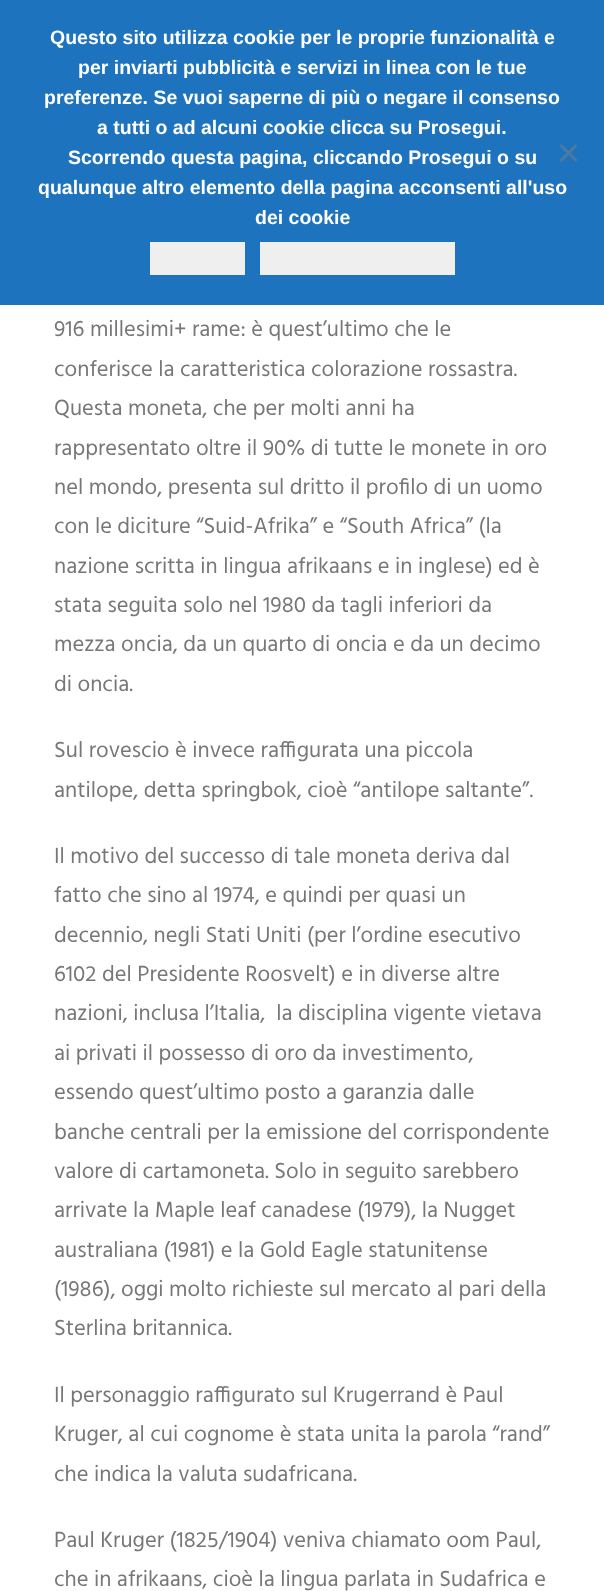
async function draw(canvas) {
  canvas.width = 604
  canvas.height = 1591
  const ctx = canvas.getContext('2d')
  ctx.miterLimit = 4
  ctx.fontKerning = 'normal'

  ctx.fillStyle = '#fff'
  ctx.fillRect(0, 0, 604, 1591)
  ctx.fillStyle = '#1e73be'
  ctx.fillRect(0, 0, 604, 305)
  ctx.font = 'bold 19.5px Liberation Sans'
  ctx.fillStyle = '#fff'
  ctx.fillText('Questo sito utilizza cookie per le proprie funzionalità e', 50, 44)
  ctx.fillText('per inviarti pubblicità e servizi in linea con le tue', 78, 74)
  ctx.fillText('preferenze. Se vuoi saperne di più o negare il consenso', 44, 104)
  ctx.fillText('a tutti o ad alcuni cookie clicca su Prosegui.', 97, 134)
  ctx.fillText('Scorrendo questa pagina, cliccando Prosegui o su', 68, 164)
  ctx.fillText('qualunque altro elemento della pagina acconsenti all\'uso', 38, 194)
  ctx.fillText('dei cookie', 255, 224)
  ctx.fillStyle = '#4f7a9f'
  ctx.beginPath()
  ctx.moveTo(575.5, 144)
  ctx.lineTo(577.5, 146)
  ctx.lineTo(561.5, 162)
  ctx.lineTo(559.5, 160)
  ctx.closePath()
  ctx.fill()
  ctx.beginPath()
  ctx.moveTo(559.5, 146)
  ctx.lineTo(561.5, 144)
  ctx.lineTo(577.5, 160)
  ctx.lineTo(575.5, 162)
  ctx.closePath()
  ctx.fill()
  ctx.fillStyle = '#efefef'
  ctx.fillRect(150, 242, 95, 33)
  ctx.fillRect(260, 242, 195, 33)
  ctx.font = '22.5px Hind'
  ctx.fillStyle = '#777'
  ctx.fillText('916 millesimi+ rame: è quest’ultimo che le', 54, 336)
  ctx.fillText('conferisce la caratteristica colorazione rossastra.', 54, 376)
  ctx.fillText('Questa moneta, che per molti anni ha', 54, 415)
  ctx.fillText('rappresentato oltre il 90% di tutte le monete in oro', 54, 455)
  ctx.fillText('nel mondo, presenta sul dritto il profilo di un uomo', 54, 494)
  ctx.fillText('con le diciture “Suid-Afrika” e “South Africa” (la', 54, 533)
  ctx.fillText('nazione scritta in lingua afrikaans e in inglese) ed è', 54, 573)
  ctx.fillText('stata seguita solo nel 1980 da tagli inferiori da', 54, 612)
  ctx.fillText('mezza oncia, da un quarto di oncia e da un decimo', 54, 651)
  ctx.fillText('di oncia.', 54, 691)
  ctx.fillText('Sul rovescio è invece raffigurata una piccola', 54, 757)
  ctx.fillText('antilope, detta springbok, cioè “antilope saltante”.', 54, 797)
  ctx.fillText('Il motivo del successo di tale moneta deriva dal', 54, 863)
  ctx.fillText('fatto che sino al 1974, e quindi per quasi un', 54, 902)
  ctx.fillText('decennio, negli Stati Uniti (per l’ordine esecutivo', 54, 942)
  ctx.fillText('6102 del Presidente Roosvelt) e in diverse altre', 54, 981)
  ctx.fillText('nazioni, inclusa l’Italia,  la disciplina vigente vietava', 54, 1020)
  ctx.fillText('ai privati il possesso di oro da investimento,', 54, 1060)
  ctx.fillText('essendo quest’ultimo posto a garanzia dalle', 54, 1099)
  ctx.fillText('banche centrali per la emissione del corrispondente', 54, 1139)
  ctx.fillText('valore di cartamoneta. Solo in seguito sarebbero', 54, 1178)
  ctx.fillText('arrivate la Maple leaf canadese (1979), la Nugget', 54, 1217)
  ctx.fillText('australiana (1981) e la Gold Eagle statunitense', 54, 1257)
  ctx.fillText('(1986), oggi molto richieste sul mercato al pari della', 54, 1296)
  ctx.fillText('Sterlina britannica.', 54, 1335)
  ctx.fillText('Il personaggio raffigurato sul Krugerrand è Paul', 54, 1402)
  ctx.fillText('Kruger, al cui cognome è stata unita la parola “rand”', 54, 1441)
  ctx.fillText('che indica la valuta sudafricana.', 54, 1481)
  ctx.fillText('Paul Kruger (1825/1904) veniva chiamato oom Paul,', 54, 1547)
  ctx.fillText('che in afrikaans, cioè la lingua parlata in Sudafrica e', 54, 1586)
}

draw(document.querySelector('canvas'))
